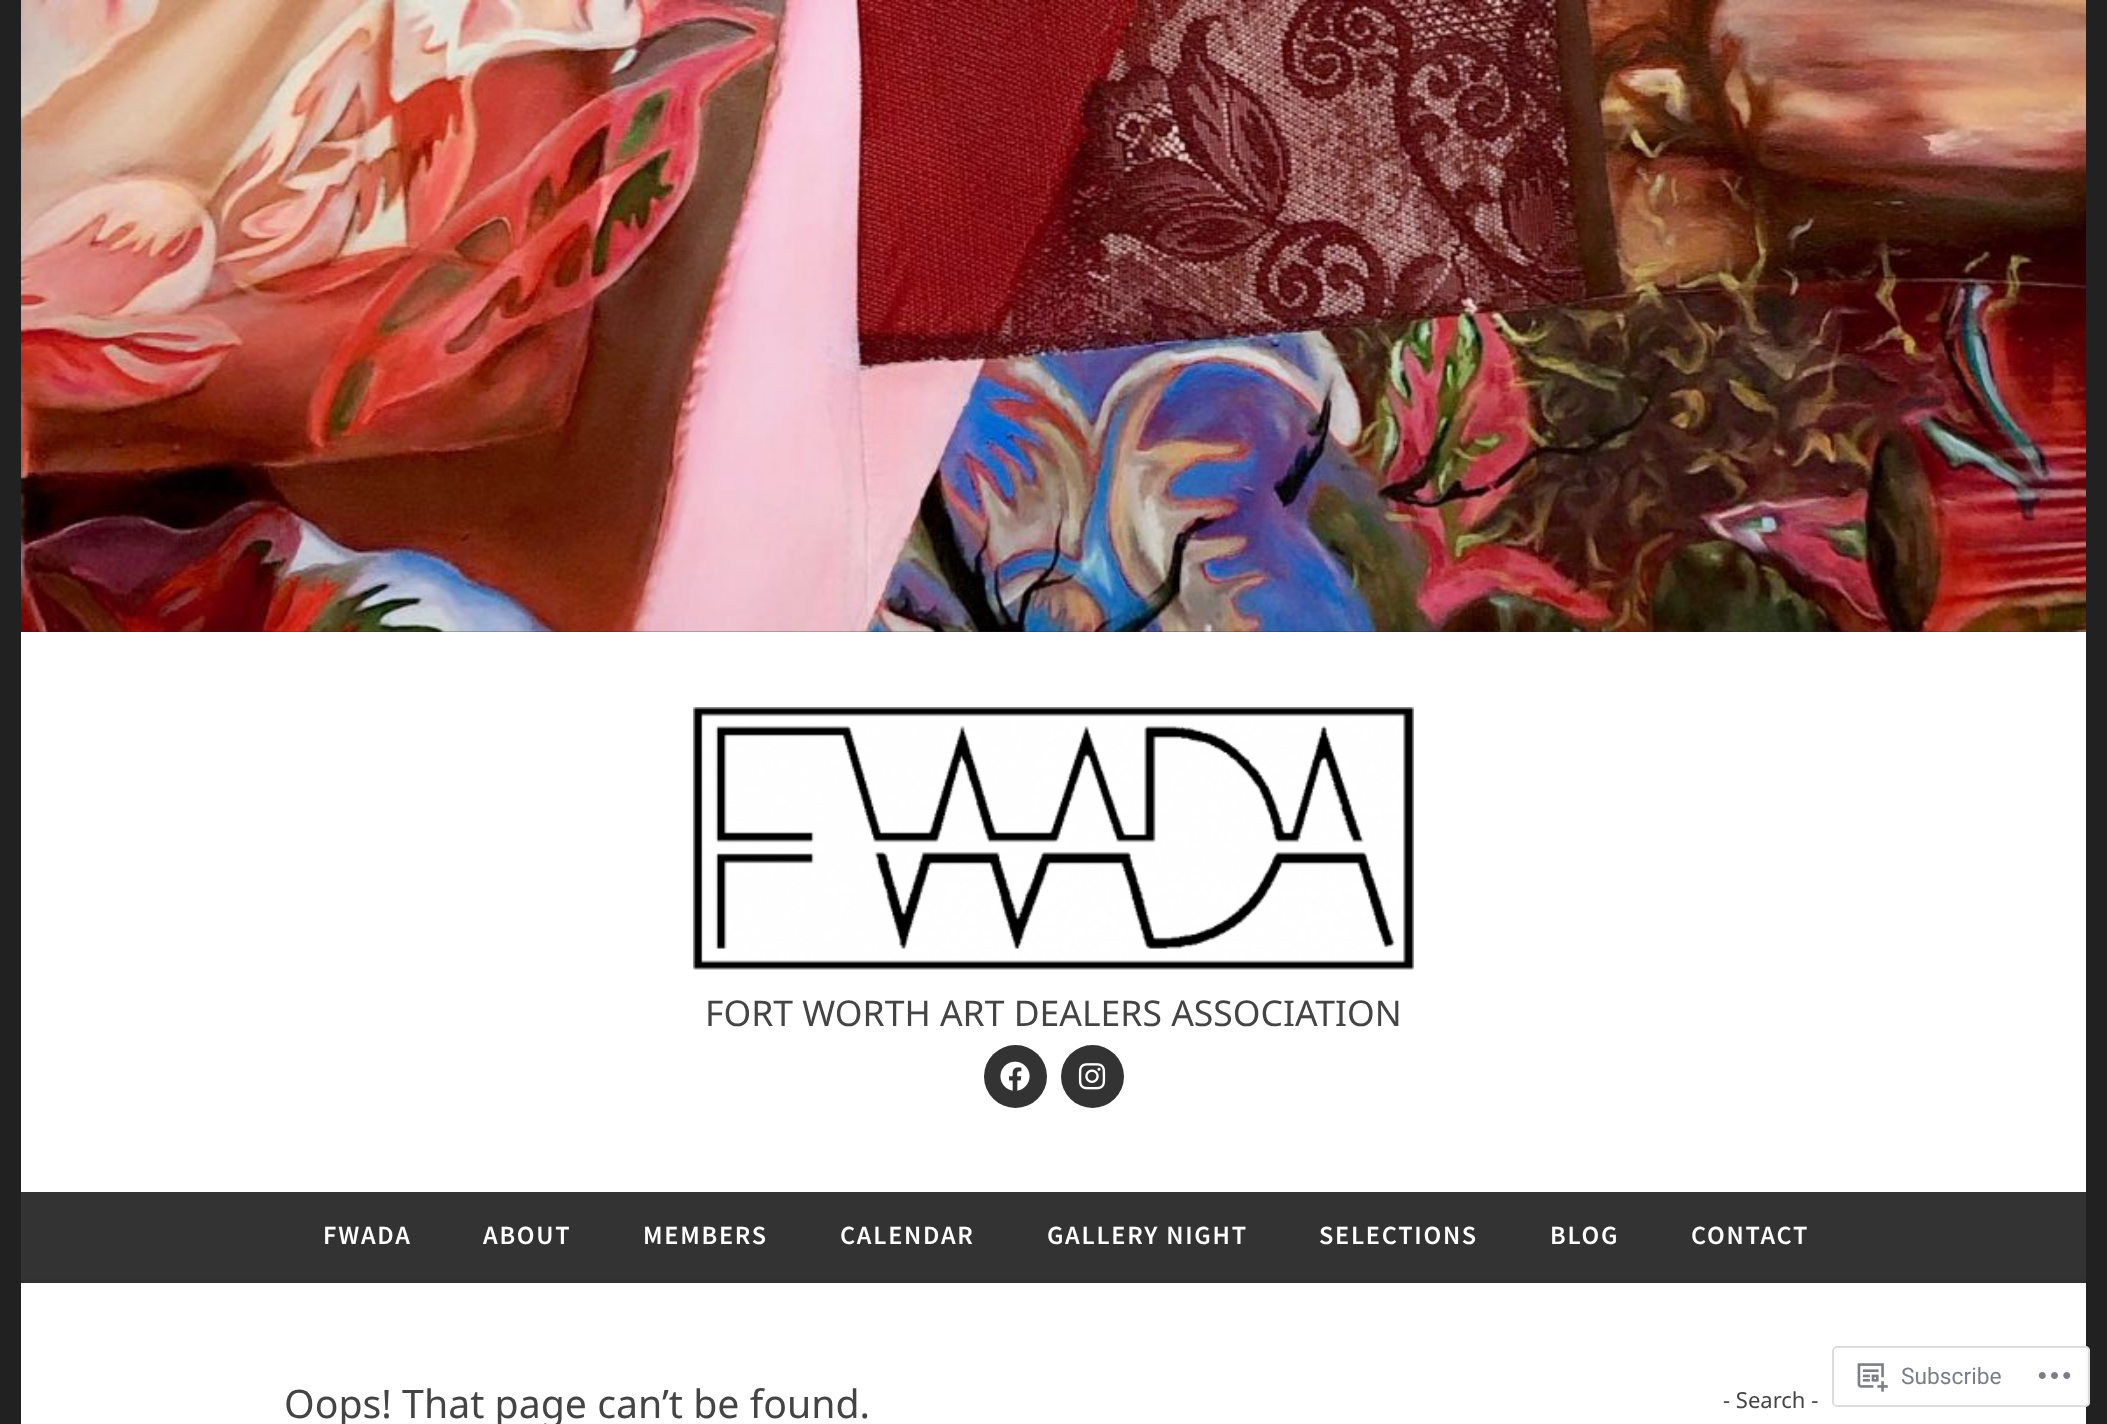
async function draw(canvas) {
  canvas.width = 2107
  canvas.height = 1424
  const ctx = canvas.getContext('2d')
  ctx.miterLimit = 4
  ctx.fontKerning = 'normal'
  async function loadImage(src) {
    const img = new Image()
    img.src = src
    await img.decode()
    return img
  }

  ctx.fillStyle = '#212121'
  ctx.fillRect(0, 0, 2107, 1424)
  ctx.drawImage(await loadImage('image0.png'), 21, 0, 2065, 632)
  ctx.fillStyle = '#fff'
  ctx.fillRect(21, 632, 2065, 560)
  ctx.drawImage(await loadImage('image1.png'), 693, 707, 721, 263)
  ctx.font = '35.5px Noto Sans'
  ctx.fillStyle = '#444'
  ctx.fillText('FORT WORTH ART DEALERS ASSOCIATION', 705, 1026)
  ctx.fillStyle = '#333'
  ctx.beginPath()
  ctx.arc(1015.5, 1076.5, 31.5, 0, 2 * Math.PI)
  ctx.fill()
  ctx.drawImage(await loadImage('image2.png'), 1000, 1061, 30, 30)
  ctx.beginPath()
  ctx.arc(1092.5, 1076.5, 31.5, 0, 2 * Math.PI)
  ctx.fill()
  ctx.drawImage(await loadImage('image3.png'), 1078, 1063, 28, 27)
  ctx.fillRect(21, 1192, 2065, 87)
  ctx.fillStyle = '#313131'
  ctx.fillRect(21, 1279, 2065, 4)
  ctx.letterSpacing = '1.75px'
  ctx.font = '600 26.25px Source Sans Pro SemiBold'
  ctx.fillStyle = '#fff'
  ctx.fillText('FWADA', 323, 1244)
  ctx.fillText('ABOUT', 483, 1244)
  ctx.fillText('MEMBERS', 643, 1244)
  ctx.fillText('CALENDAR', 840, 1244)
  ctx.fillText('GALLERY NIGHT', 1047, 1244)
  ctx.fillText('SELECTIONS', 1319, 1244)
  ctx.fillText('BLOG', 1550, 1244)
  ctx.fillText('CONTACT', 1691, 1244)
  ctx.fillRect(21, 1283, 2065, 141)
  ctx.letterSpacing = '0px'
  ctx.font = '39.25px Noto Sans'
  ctx.fillStyle = '#444'
  ctx.fillText('Oops! That page can’t be found.', 284, 1418)
  ctx.font = '22px Noto Sans'
  ctx.fillText('- Search -', 1723, 1408)
  ctx.fillStyle = '#fffffffa'
  ctx.beginPath()
  ctx.roundRect(1832, 1346, 258, 61, 5)
  ctx.fill()
  ctx.beginPath()
  ctx.roundRect(1833, 1347, 256, 59, 4)
  ctx.strokeStyle = '#dcdcdefa'
  ctx.lineWidth = 2
  ctx.stroke()
  ctx.drawImage(await loadImage('image4.png'), 1857, 1363, 31, 29)
  ctx.font = '22.75px Roboto'
  ctx.fillStyle = '#7b7f85'
  ctx.fillText('Subscribe', 1901, 1384)
  ctx.drawImage(await loadImage('image5.png'), 2038, 1372, 33, 7)
}

draw(document.querySelector('canvas'))
